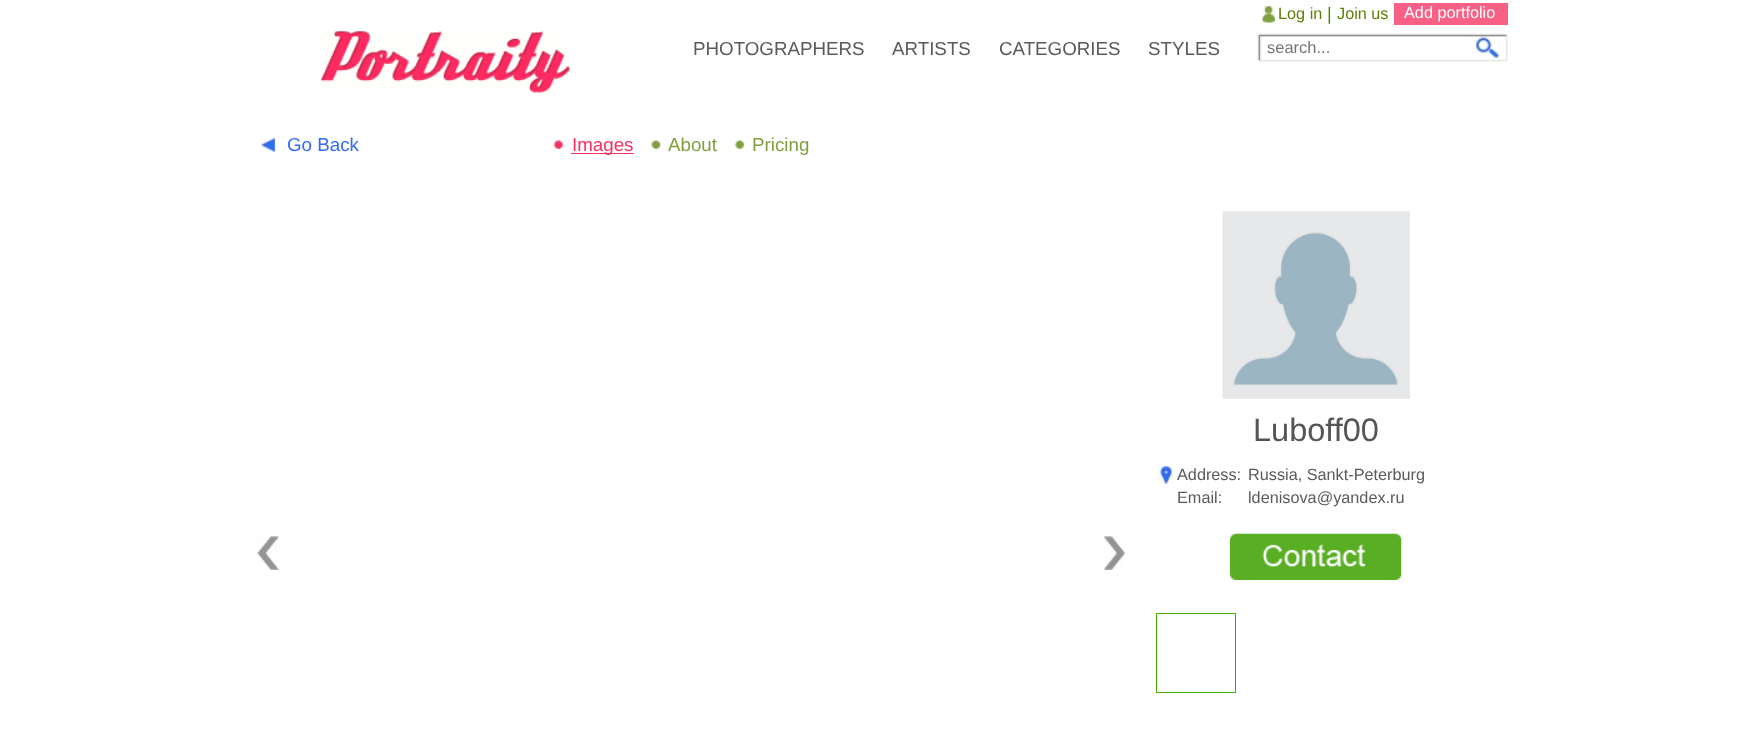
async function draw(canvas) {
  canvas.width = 1764
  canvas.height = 732
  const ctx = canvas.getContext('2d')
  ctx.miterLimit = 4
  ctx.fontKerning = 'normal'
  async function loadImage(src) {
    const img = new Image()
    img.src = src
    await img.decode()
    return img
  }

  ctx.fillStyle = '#fff'
  ctx.fillRect(0, 0, 1764, 732)
  ctx.drawImage(await loadImage('image0.png'), 321, 31, 249, 62)
  ctx.drawImage(await loadImage('image1.png'), 1262, 6, 13, 17)
  ctx.font = '16.25px Liberation Sans'
  ctx.fillStyle = '#5e7e03'
  ctx.fillText('Log in', 1278, 19)
  ctx.font = '18px Liberation Sans'
  ctx.fillText('|', 1327, 20)
  ctx.font = '16.25px Liberation Sans'
  ctx.fillText('Join us', 1337, 19)
  ctx.fillStyle = '#f86086'
  ctx.fillRect(1394, 3, 114, 22)
  ctx.fillStyle = '#fff'
  ctx.fillText('Add portfolio', 1404, 18)
  ctx.font = '18.75px Liberation Sans'
  ctx.fillStyle = '#5b5a5a'
  ctx.fillText('PHOTOGRAPHERS', 693, 55)
  ctx.fillText('ARTISTS', 892, 55)
  ctx.fillText('CATEGORIES', 999, 55)
  ctx.fillText('STYLES', 1148, 55)
  ctx.drawImage(await loadImage('image2.png'), 1257, 33, 251, 29)
  ctx.font = '16.5px Liberation Sans'
  ctx.fillStyle = '#757575'
  ctx.fillText('search...', 1267, 53)
  ctx.drawImage(await loadImage('image3.png'), 261, 137, 14, 16)
  ctx.font = '18.75px Liberation Sans'
  ctx.fillStyle = '#316bfa'
  ctx.fillText('Go Back', 287, 151)
  ctx.drawImage(await loadImage('image4.png'), 553, 140, 11, 9)
  ctx.fillStyle = '#fb2f61'
  ctx.fillRect(571, 153, 63, 1)
  ctx.fillText('Images', 572, 151)
  ctx.drawImage(await loadImage('image5.png'), 651, 140, 11, 9)
  ctx.fillStyle = '#80a040'
  ctx.fillText('About', 668, 151)
  ctx.drawImage(await loadImage('image6.png'), 735, 140, 10, 9)
  ctx.fillText('Pricing', 752, 151)
  ctx.drawImage(await loadImage('image7.png'), 1222, 211, 188, 188)
  ctx.font = '32.5px Liberation Sans'
  ctx.fillStyle = '#555'
  ctx.fillText('Luboff00', 1253, 441)
  ctx.drawImage(await loadImage('image8.png'), 1158, 466, 16, 18)
  ctx.font = '16.25px Liberation Sans'
  ctx.fillStyle = '#5b5a5a'
  ctx.fillText('Address:', 1177, 480)
  ctx.fillText('Russia, Sankt-Peterburg', 1248, 480)
  ctx.fillText('Email:', 1177, 503)
  ctx.fillText('ldenisova@yandex.ru', 1248, 503)
  ctx.drawImage(await loadImage('image9.png'), 1230, 533, 172, 47)
  ctx.strokeStyle = '#47af01'
  ctx.strokeRect(1156.5, 613.5, 79, 79)
  ctx.drawImage(await loadImage('image10.png'), 257, 536, 22, 34)
  ctx.drawImage(await loadImage('image11.png'), 1103, 536, 22, 34)
}

draw(document.querySelector('canvas'))
